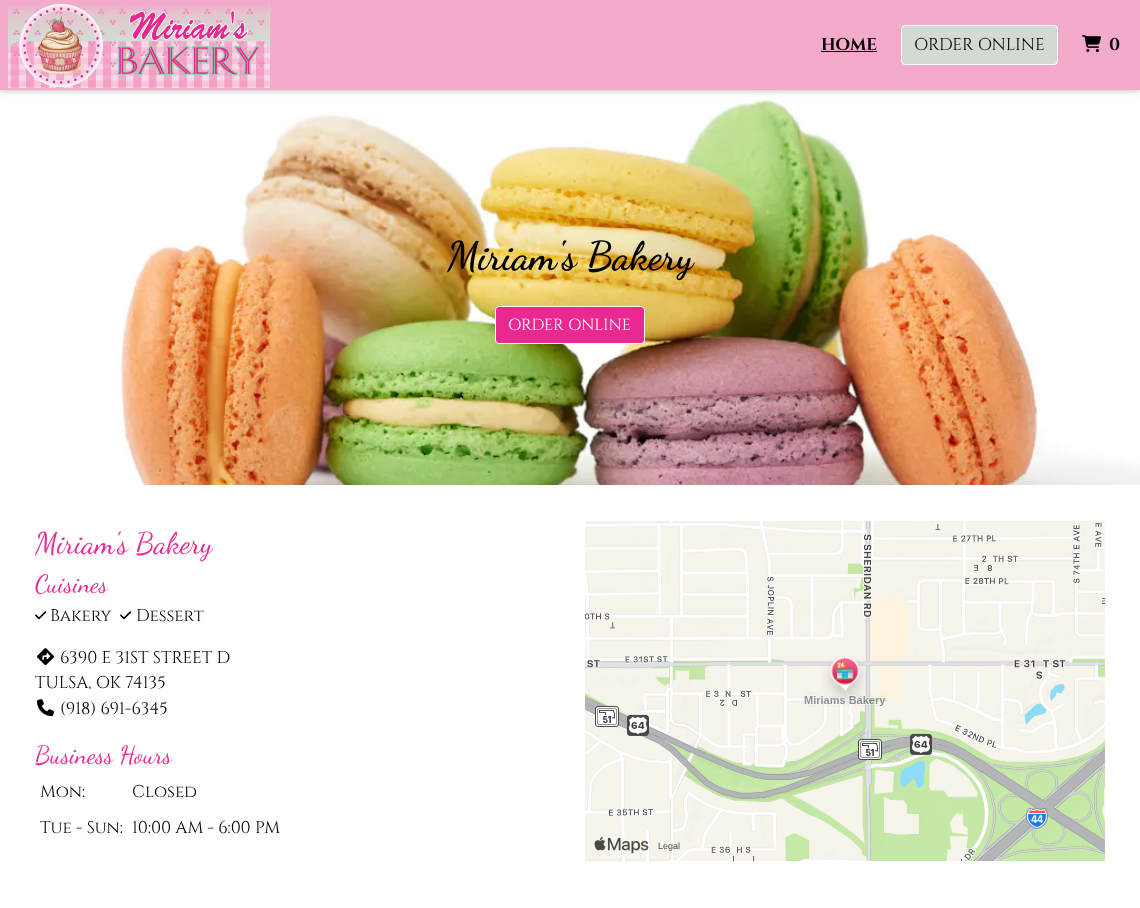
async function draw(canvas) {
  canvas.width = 1140
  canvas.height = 908
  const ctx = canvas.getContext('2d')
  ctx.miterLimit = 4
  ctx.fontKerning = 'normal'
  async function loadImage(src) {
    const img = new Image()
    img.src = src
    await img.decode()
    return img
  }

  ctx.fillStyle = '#fff'
  ctx.fillRect(0, 0, 1140, 908)
  ctx.drawImage(await loadImage('image2.png'), 119, 94, 1021, 391)
  ctx.fillStyle = '#20212447'
  ctx.filter = 'blur(3px)'
  ctx.beginPath()
  ctx.rect(0, 1, 1140, 90)
  ctx.fill()
  ctx.filter = 'none'
  ctx.fillStyle = '#f4abcb'
  ctx.fillRect(0, 0, 1140, 90)
  ctx.drawImage(await loadImage('image0.png'), 8, 3, 262, 85)
  ctx.font = 'bold 17px Cinzel'
  ctx.fillStyle = '#000'
  ctx.fillText('HOME', 821, 50)
  ctx.fillRect(821, 51, 56, 1)
  ctx.fillStyle = '#d3dad1'
  ctx.beginPath()
  ctx.roundRect(901.5, 25.5, 156, 39, 3.5)
  ctx.fill()
  ctx.strokeStyle = '#fff'
  ctx.stroke()
  ctx.font = '17px Cinzel'
  ctx.fillStyle = '#000'
  ctx.fillText('ORDER ONLINE', 914, 50)
  ctx.drawImage(await loadImage('image1.png'), 1082, 35, 19, 18)
  ctx.font = 'bold 17px Cinzel'
  ctx.fillText('0', 1109, 50)
  ctx.font = 'bold 40px Dancing Script'
  ctx.fillText('Miriam\'s Bakery', 447, 269)
  ctx.fillStyle = '#e92990'
  ctx.beginPath()
  ctx.roundRect(495.5, 306.5, 149, 37, 3.5)
  ctx.fill()
  ctx.stroke()
  ctx.font = '16px Cinzel'
  ctx.fillStyle = '#fff'
  ctx.fillText('ORDER ONLINE', 508, 330)
  ctx.font = '30px Dancing Script'
  ctx.fillStyle = '#e92990'
  ctx.fillText('Miriam\'s Bakery', 35, 553)
  ctx.font = '25px Dancing Script'
  ctx.fillText('Cuisines', 35, 592)
  ctx.drawImage(await loadImage('image3.png'), 35, 611, 12, 9)
  ctx.font = '17px Cinzel'
  ctx.fillStyle = '#000'
  ctx.fillText('Bakery', 50, 621)
  ctx.drawImage(await loadImage('image3.png'), 120, 611, 12, 9)
  ctx.fillText('Dessert', 136, 621)
  ctx.drawImage(await loadImage('image4.png'), 37, 648, 17, 18)
  ctx.fillText('6390 E 31ST STREET D', 60, 663)
  ctx.fillText('TULSA, OK 74135', 35, 688)
  ctx.drawImage(await loadImage('image5.png'), 37, 699, 17, 18)
  ctx.fillText('(918) 691-6345', 60, 714)
  ctx.font = '25px Dancing Script'
  ctx.fillStyle = '#e92990'
  ctx.fillText('Business Hours', 35, 763)
  ctx.font = '17px Cinzel'
  ctx.fillStyle = '#000'
  ctx.fillText('Mon:', 40, 797)
  ctx.fillText('Closed', 132, 797)
  ctx.fillText('Tue - Sun:', 40, 833)
  ctx.fillText('10:00 AM - 6:00 PM', 132, 833)
  ctx.drawImage(await loadImage('image6.png'), 585, 521, 520, 340)
  ctx.drawImage(await loadImage('image7.png'), 803, 656, 84, 51)
  ctx.drawImage(await loadImage('image8.png'), 594, 836, 55, 18)
  ctx.font = '9px Liberation Sans'
  ctx.fillStyle = '#4a4947'
  ctx.fillText('Legal', 658, 849)
}

draw(document.querySelector('canvas'))
